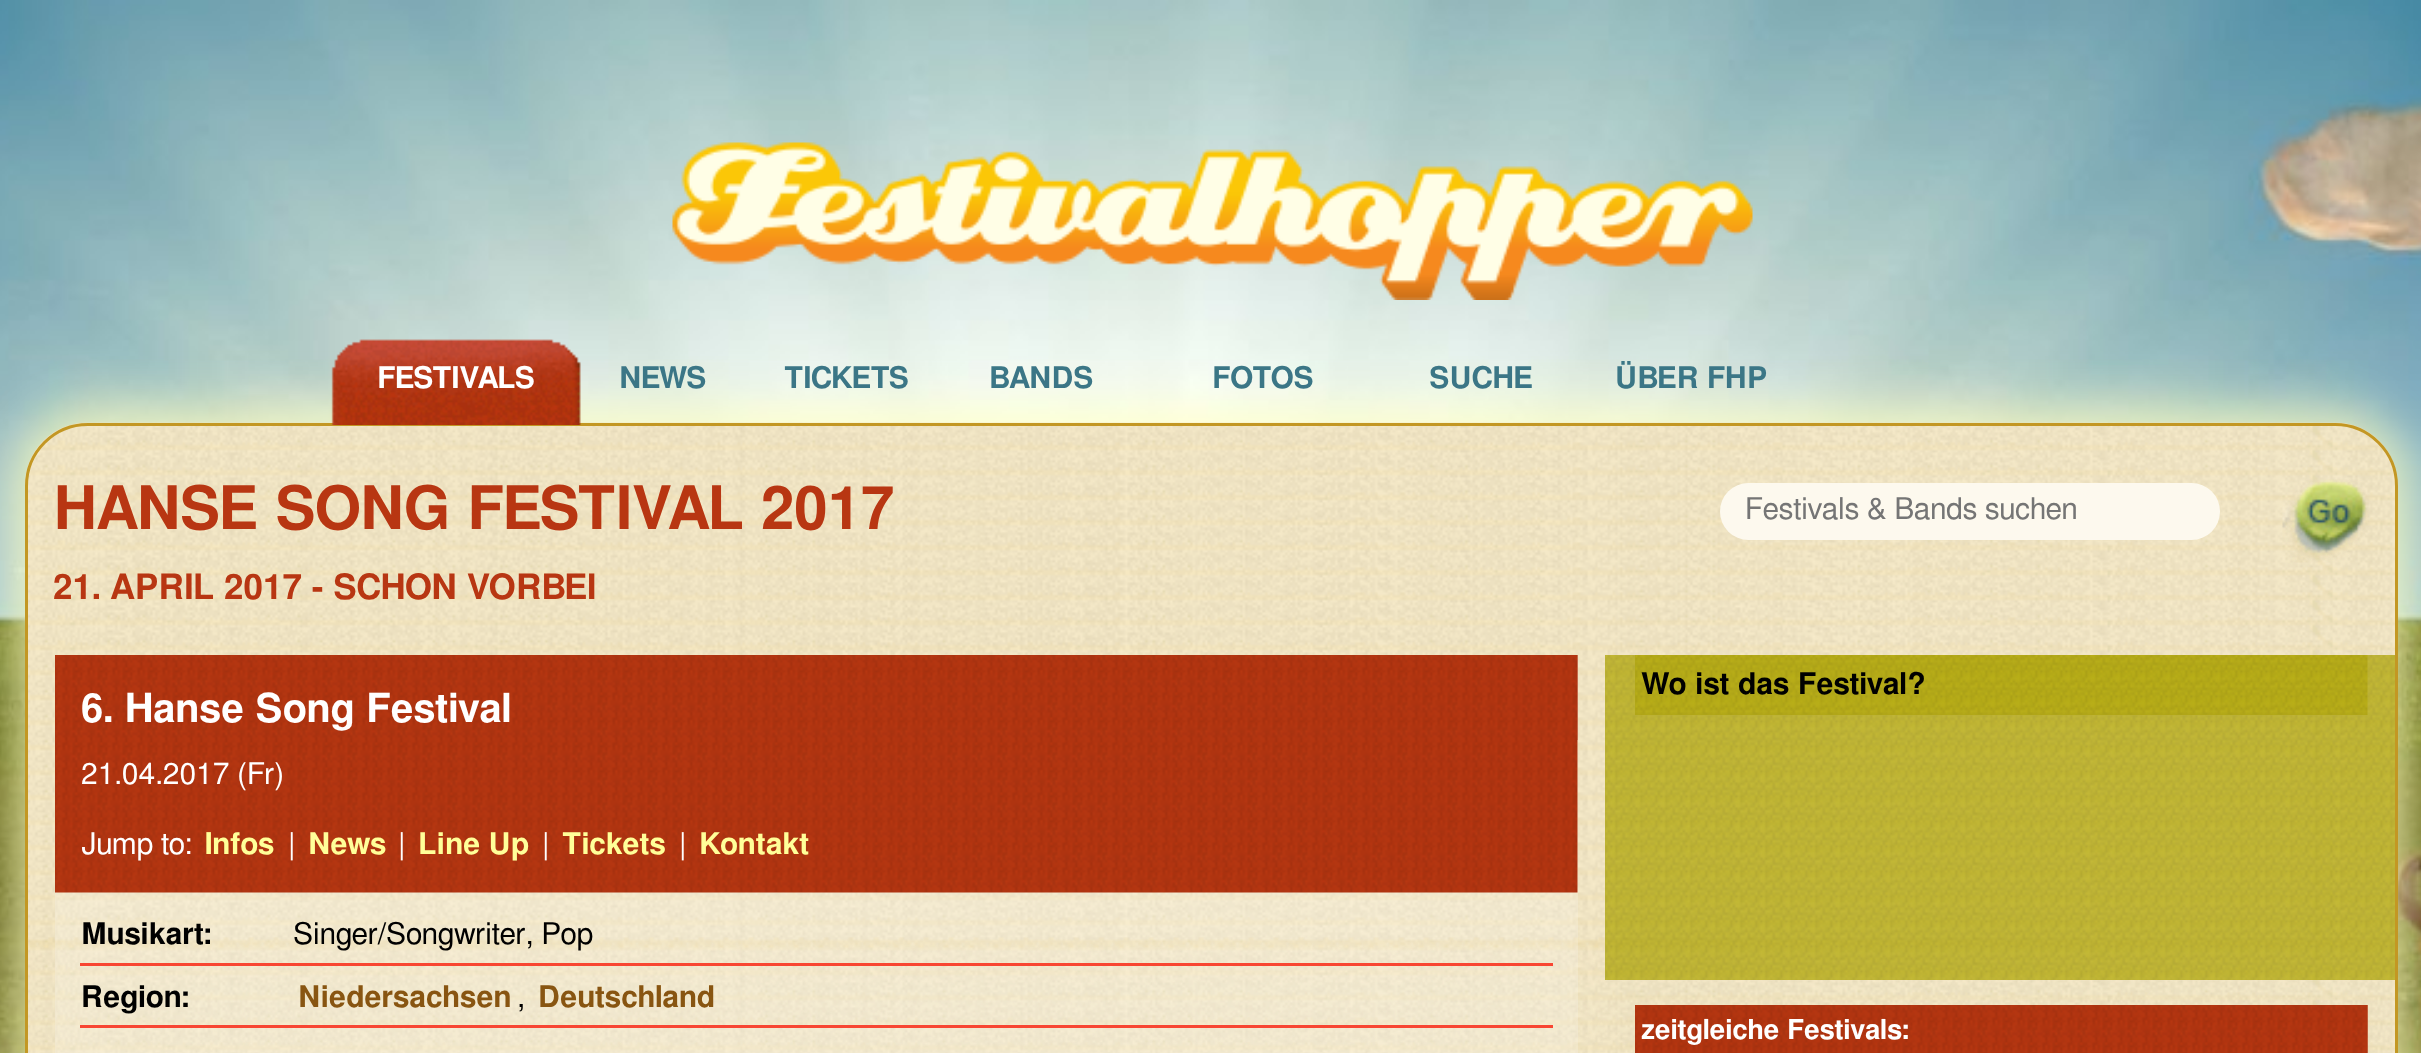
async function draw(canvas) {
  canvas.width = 2421
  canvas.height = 1053
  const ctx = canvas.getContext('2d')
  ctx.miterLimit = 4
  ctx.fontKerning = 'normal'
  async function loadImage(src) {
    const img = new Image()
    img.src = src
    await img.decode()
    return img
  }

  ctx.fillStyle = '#fff'
  ctx.fillRect(0, 0, 2421, 1053)
  ctx.drawImage(await loadImage('image0.png'), 0, 0, 2421, 1053)
  ctx.drawImage(await loadImage('image1.png'), 672, 142, 1081, 158)
  ctx.fillStyle = '#ffffbecc'
  ctx.filter = 'blur(25px)'
  ctx.beginPath()
  ctx.roundRect(13, 410, 2397, 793, 75)
  ctx.fill()
  ctx.filter = 'none'
  ctx.drawImage(await loadImage('image3.png'), 25, 422, 2373, 631)
  ctx.beginPath()
  ctx.roundRect(26.5, 424.5, 2370, 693, 61.5)
  ctx.strokeStyle = '#c39723'
  ctx.lineWidth = 3
  ctx.stroke()
  ctx.drawImage(await loadImage('image2.png'), 331, 339, 250, 86)
  ctx.font = '600 30px FreeSans'
  ctx.fillStyle = '#fff'
  ctx.fillText('FESTIVALS', 377, 388)
  ctx.fillStyle = '#3b7686'
  ctx.fillText('NEWS', 619, 388)
  ctx.fillText('TICKETS', 784, 388)
  ctx.fillText('BANDS', 989, 388)
  ctx.fillText('FOTOS', 1212, 388)
  ctx.fillText('SUCHE', 1429, 388)
  ctx.fillText('ÜBER FHP', 1615, 388)
  ctx.drawImage(await loadImage('image4.png'), 27, 937, 2368, 116)
  ctx.font = '600 60px FreeSans'
  ctx.fillStyle = '#b83612'
  ctx.fillText('HANSE SONG FESTIVAL 2017', 53, 529)
  ctx.fillStyle = '#fdf9ee'
  ctx.beginPath()
  ctx.roundRect(1720, 483, 500, 57, 28.5)
  ctx.fill()
  ctx.font = '30px FreeSans'
  ctx.fillStyle = '#757575'
  ctx.fillText('Festivals & Bands suchen', 1745, 519)
  ctx.drawImage(await loadImage('image5.png'), 2282, 479, 87, 84)
  ctx.font = '600 35px FreeSans'
  ctx.fillStyle = '#b83612'
  ctx.fillText('21. APRIL 2017 - SCHON VORBEI', 53, 599)
  ctx.drawImage(await loadImage('image6.png'), 1605, 655, 790, 325)
  ctx.drawImage(await loadImage('image7.png'), 1635, 655, 733, 60)
  ctx.font = '600 30px FreeSans'
  ctx.fillStyle = '#000'
  ctx.fillText('Wo ist das Festival?', 1641, 694)
  ctx.fillStyle = '#ffffff33'
  ctx.fillRect(55, 655, 1523, 398)
  ctx.drawImage(await loadImage('image8.png'), 55, 655, 1523, 238)
  ctx.fillRect(1577, 655, 1, 85)
  ctx.drawImage(await loadImage('image9.png'), 55, 655, 1523, 85)
  ctx.font = '600 40px FreeSans'
  ctx.fillStyle = '#fff'
  ctx.fillText('6. Hanse Song Festival', 81, 722)
  ctx.font = '30px FreeSans'
  ctx.fillText('21.04.2017 (Fr)', 81, 784)
  ctx.fillText('Jump to:', 81, 854)
  ctx.font = '600 30px FreeSans'
  ctx.fillStyle = '#ff9'
  ctx.fillText('Infos', 204, 854)
  ctx.font = '30px FreeSans'
  ctx.fillStyle = '#fff'
  ctx.fillText('|', 288, 854)
  ctx.font = '600 30px FreeSans'
  ctx.fillStyle = '#ff9'
  ctx.fillText('News', 308, 854)
  ctx.font = '30px FreeSans'
  ctx.fillStyle = '#fff'
  ctx.fillText('|', 398, 854)
  ctx.font = '600 30px FreeSans'
  ctx.fillStyle = '#ff9'
  ctx.fillText('Line Up', 418, 854)
  ctx.font = '30px FreeSans'
  ctx.fillStyle = '#fff'
  ctx.fillText('|', 542, 854)
  ctx.font = '600 30px FreeSans'
  ctx.fillStyle = '#ff9'
  ctx.fillText('Tickets', 562, 854)
  ctx.font = '30px FreeSans'
  ctx.fillStyle = '#fff'
  ctx.fillText('|', 679, 854)
  ctx.font = '600 30px FreeSans'
  ctx.fillStyle = '#ff9'
  ctx.fillText('Kontakt', 699, 854)
  ctx.fillStyle = '#000'
  ctx.fillText('Musikart:', 81, 944)
  ctx.fillStyle = '#f84632'
  ctx.fillRect(80, 963, 1473, 3)
  ctx.font = '30px FreeSans'
  ctx.fillStyle = '#000'
  ctx.fillText('Singer/Songwriter, Pop', 293, 944)
  ctx.font = '600 30px FreeSans'
  ctx.fillText('Region:', 81, 1007)
  ctx.fillStyle = '#f84632'
  ctx.fillRect(80, 1025, 1473, 3)
  ctx.fillStyle = '#851'
  ctx.fillText('Niedersachsen', 298, 1007)
  ctx.font = '30px FreeSans'
  ctx.fillStyle = '#000'
  ctx.fillText(',', 517, 1007)
  ctx.font = '600 30px FreeSans'
  ctx.fillStyle = '#851'
  ctx.fillText('Deutschland', 538, 1007)
  ctx.drawImage(await loadImage('image10.png'), 1635, 1005, 733, 48)
  ctx.drawImage(await loadImage('image11.png'), 2367, 1005, 1, 48)
  ctx.font = '600 27.5px FreeSans'
  ctx.fillStyle = '#fff'
  ctx.fillText('zeitgleiche Festivals:', 1641, 1039)
}

draw(document.querySelector('canvas'))
